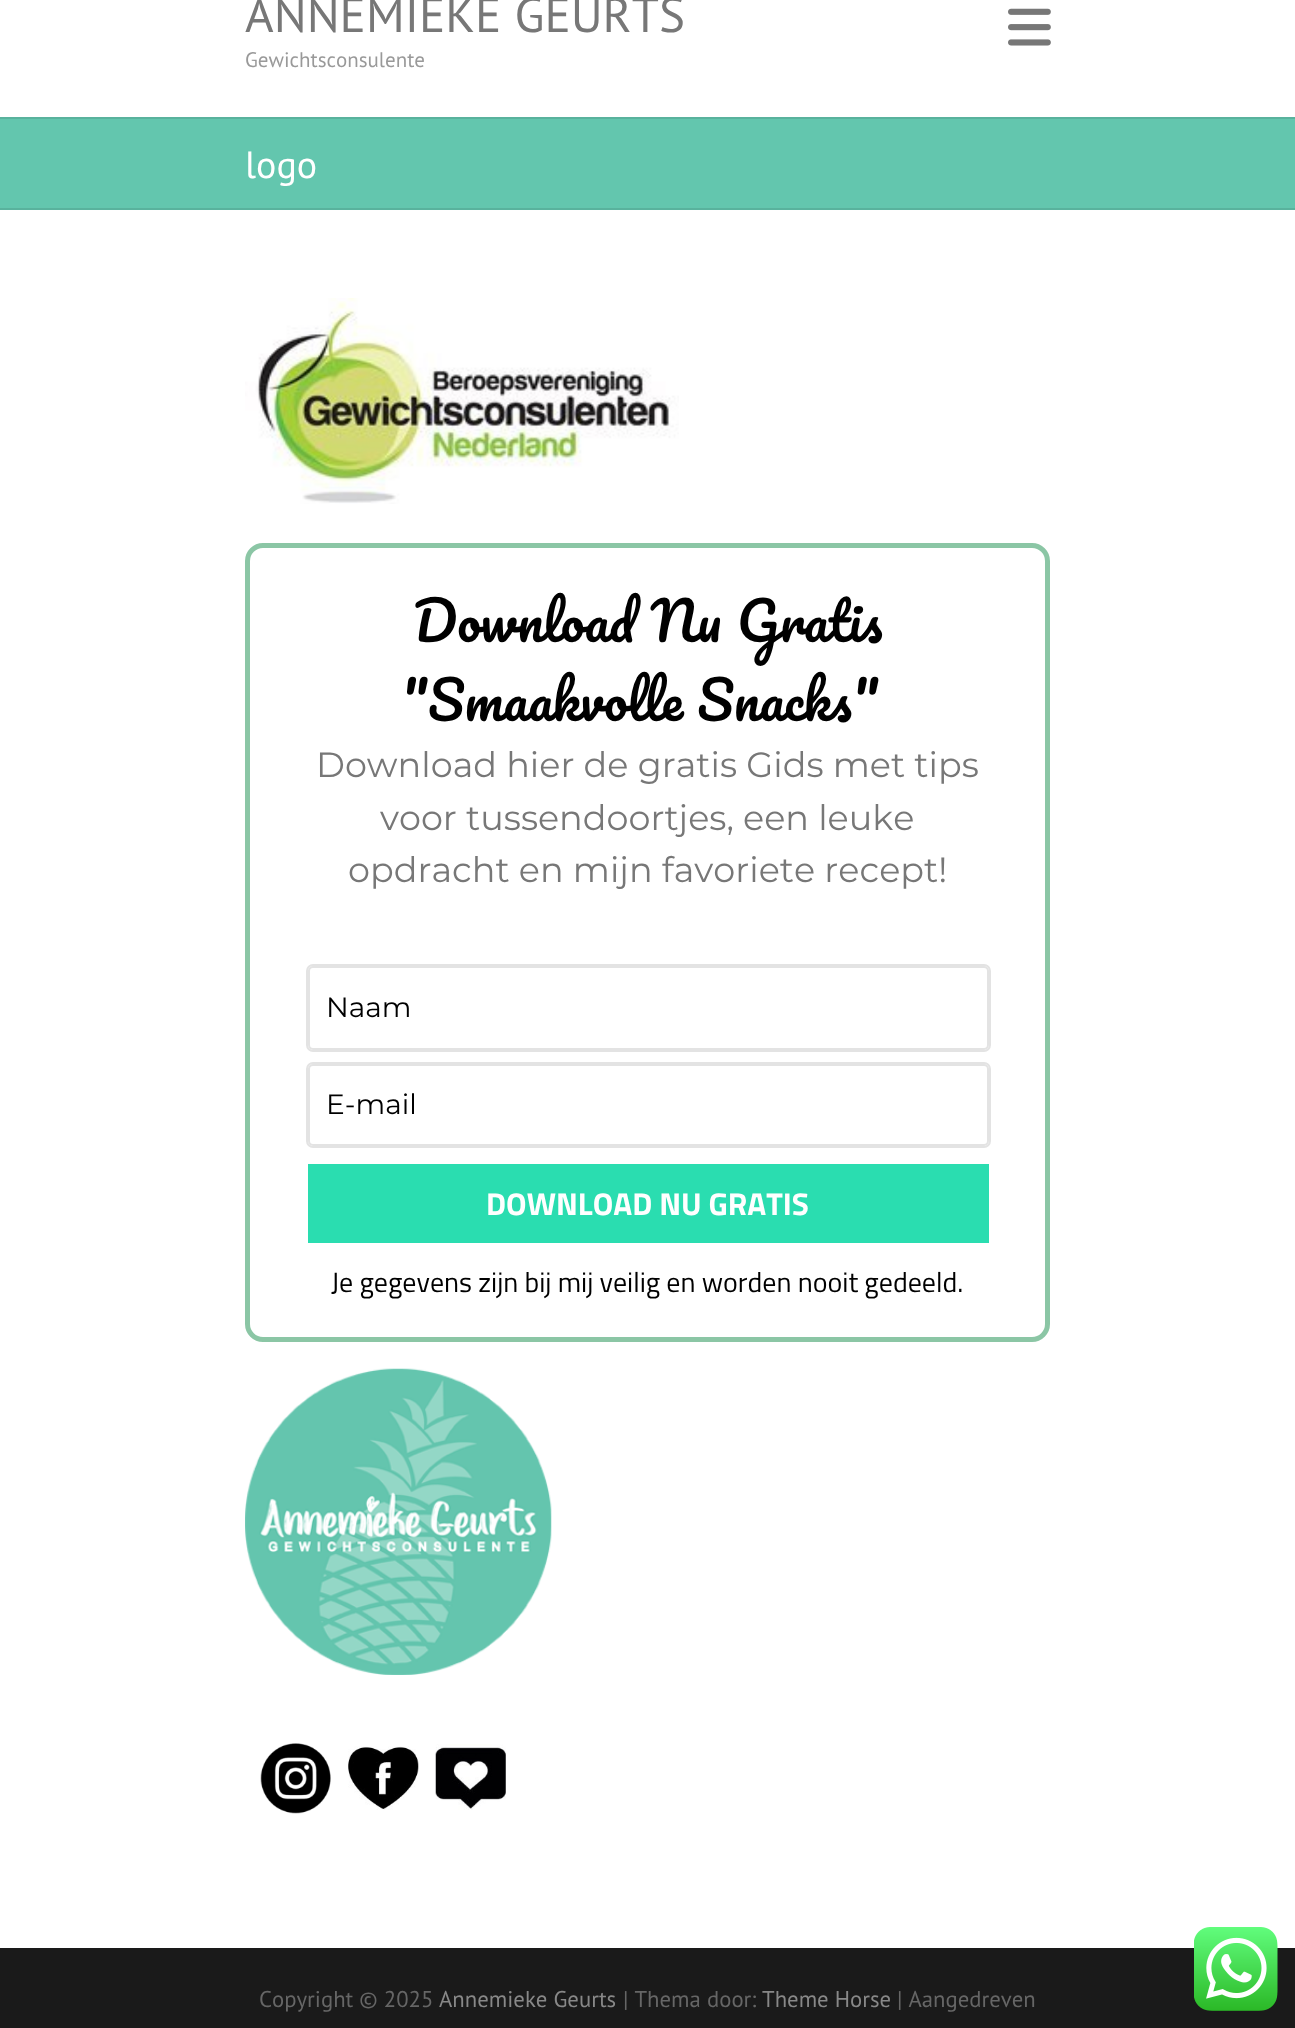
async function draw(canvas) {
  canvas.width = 1295
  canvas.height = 2028
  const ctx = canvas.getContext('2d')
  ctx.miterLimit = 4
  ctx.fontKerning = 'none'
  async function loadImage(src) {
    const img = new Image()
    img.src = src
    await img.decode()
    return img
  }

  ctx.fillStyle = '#fff'
  ctx.fillRect(0, 0, 1295, 2028)
  ctx.font = '49px PT Sans'
  ctx.fillStyle = '#777'
  ctx.fillText('ANNEMIEKE GEURTS', 245, 32)
  ctx.font = '21px PT Sans'
  ctx.fillStyle = '#999'
  ctx.fillText('Gewichtsconsulente', 245, 67)
  ctx.drawImage(await loadImage('image0.png'), 1008, 8, 43, 38)
  ctx.fillStyle = '#63c6ae'
  ctx.fillRect(0, 119, 1295, 89)
  ctx.fillStyle = '#59b29d'
  ctx.fillRect(0, 117, 1295, 2)
  ctx.fillRect(0, 208, 1295, 2)
  ctx.font = '38px PT Sans'
  ctx.fillStyle = '#fff'
  ctx.fillText('logo', 245, 178)
  ctx.drawImage(await loadImage('image1.png'), 245, 298, 434, 206)
  ctx.beginPath()
  ctx.roundRect(247.5, 545.5, 800, 794, 15.5)
  ctx.strokeStyle = '#8bc6a5'
  ctx.lineWidth = 5
  ctx.stroke()
  ctx.wordSpacing = '2px'
  ctx.font = '52.5px Pacifico'
  ctx.fillStyle = '#000'
  ctx.fillText('Download Nu Gratis', 413, 642)
  ctx.wordSpacing = '0px'
  ctx.fillText('"Smaakvolle Snacks"', 401, 721)
  ctx.font = '35px Montserrat'
  ctx.fillStyle = '#777'
  ctx.fillText('Download hier de gratis Gids met tips', 316, 777)
  ctx.fillText('voor tussendoortjes, een leuke', 380, 830)
  ctx.fillText('opdracht en mijn favoriete recept!', 348, 882)
  ctx.beginPath()
  ctx.roundRect(309, 967, 679, 82, 4)
  ctx.strokeStyle = '#e3e3e3'
  ctx.lineWidth = 2
  ctx.stroke()
  ctx.beginPath()
  ctx.roundRect(307, 965, 683, 86, 6)
  ctx.stroke()
  ctx.font = '28px Montserrat'
  ctx.fillStyle = '#000'
  ctx.fillText('Naam', 326, 1017)
  ctx.beginPath()
  ctx.roundRect(309, 1065, 679, 80, 4)
  ctx.stroke()
  ctx.beginPath()
  ctx.roundRect(307, 1063, 683, 84, 6)
  ctx.stroke()
  ctx.fillText('E-mail', 326, 1114)
  ctx.fillStyle = '#2addb0'
  ctx.fillRect(308, 1164, 681, 79)
  ctx.font = 'bold 31.5px Titillium Web'
  ctx.fillStyle = '#fff'
  ctx.fillText('DOWNLOAD NU GRATIS', 486, 1215)
  ctx.font = '28px Titillium Web'
  ctx.fillStyle = '#000'
  ctx.fillText('Je gegevens zijn bij mij veilig en worden nooit gedeeld.', 331, 1292)
  ctx.drawImage(await loadImage('image2.png'), 245, 1368, 307, 307)
  ctx.drawImage(await loadImage('image3.png'), 260, 1743, 71, 71)
  ctx.drawImage(await loadImage('image4.png'), 348, 1746, 71, 64)
  ctx.drawImage(await loadImage('image5.png'), 435, 1744, 71, 66)
  ctx.fillStyle = '#1a1a1a'
  ctx.fillRect(0, 1948, 1295, 80)
  ctx.font = '22.75px PT Sans'
  ctx.fillStyle = '#666'
  ctx.fillText('Copyright © 2025', 259, 2007)
  ctx.fillStyle = '#888'
  ctx.fillText('Annemieke Geurts', 439, 2007)
  ctx.fillStyle = '#666'
  ctx.fillText('| Thema door:', 623, 2007)
  ctx.fillStyle = '#888'
  ctx.fillText('Theme Horse', 762, 2007)
  ctx.fillStyle = '#666'
  ctx.fillText('| Aangedreven', 897, 2007)
  ctx.drawImage(await loadImage('image6.png'), 1194, 1927, 84, 84)
}

draw(document.querySelector('canvas'))
